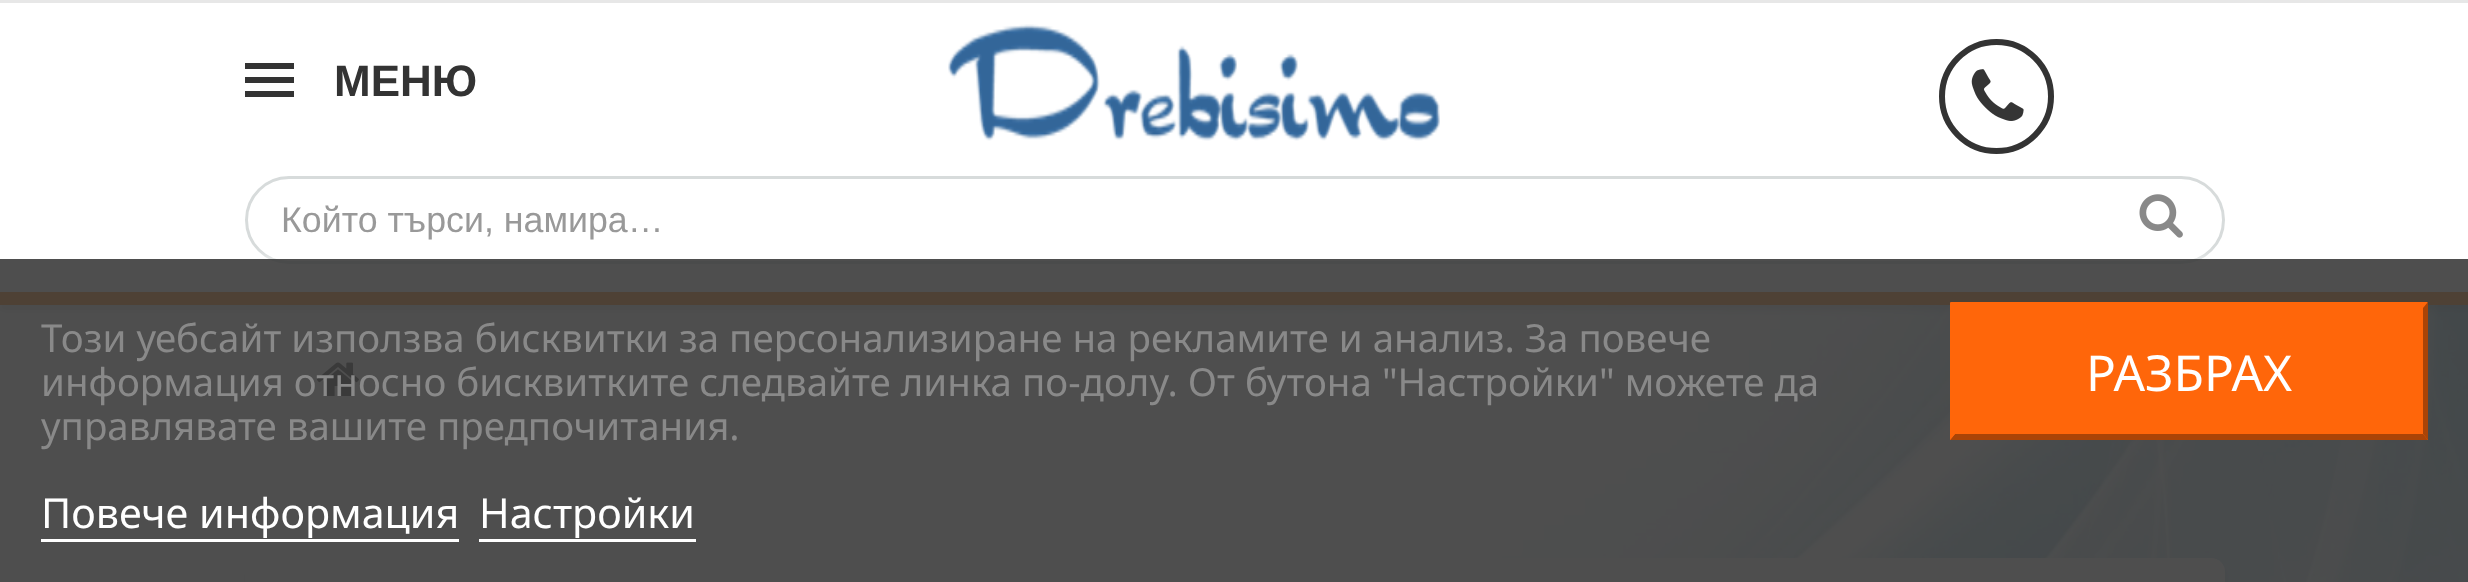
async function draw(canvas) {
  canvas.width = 2468
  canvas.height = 582
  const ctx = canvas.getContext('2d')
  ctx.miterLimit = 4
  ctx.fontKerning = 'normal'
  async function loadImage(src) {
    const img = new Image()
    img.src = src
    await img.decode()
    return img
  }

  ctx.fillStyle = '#fff'
  ctx.fillRect(0, 0, 2468, 582)
  ctx.drawImage(await loadImage('image0.png'), 246, 305, 2222, 277)
  ctx.fillStyle = '#0b191c1f'
  ctx.filter = 'blur(3px)'
  ctx.beginPath()
  ctx.rect(0, 6, 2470, 305)
  ctx.fill()
  ctx.filter = 'none'
  ctx.fillStyle = '#fff'
  ctx.fillRect(0, 3, 2468, 289)
  ctx.fillStyle = '#e7e7e7'
  ctx.fillRect(0, 0, 2468, 3)
  ctx.fillStyle = '#f87b00'
  ctx.fillRect(0, 292, 2468, 13)
  ctx.fillStyle = '#333'
  ctx.fillRect(245, 63, 49, 6)
  ctx.fillRect(245, 77, 49, 6)
  ctx.fillRect(245, 91, 49, 6)
  ctx.font = 'bold 44px Liberation Sans'
  ctx.fillText('МЕНЮ', 334, 96)
  ctx.drawImage(await loadImage('image1.png'), 948, 24, 492, 117)
  ctx.beginPath()
  ctx.arc(1996.5, 96.5, 54.5, 0, 2 * Math.PI)
  ctx.strokeStyle = '#333'
  ctx.lineWidth = 6
  ctx.stroke()
  ctx.drawImage(await loadImage('image2.png'), 1971, 69, 53, 52)
  ctx.beginPath()
  ctx.roundRect(246.5, 177.5, 1977, 85, 42.5)
  ctx.strokeStyle = '#d7dbdb'
  ctx.lineWidth = 3
  ctx.stroke()
  ctx.font = '35.75px Liberation Sans'
  ctx.fillStyle = '#999'
  ctx.fillText('Който търси, намира…', 281, 232)
  ctx.drawImage(await loadImage('image3.png'), 2139, 194, 44, 44)
  ctx.drawImage(await loadImage('image4.png'), 317, 362, 42, 34)
  ctx.fillStyle = '#0b191c1a'
  ctx.filter = 'blur(3px)'
  ctx.beginPath()
  ctx.roundRect(245, 564, 1980, 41, 14)
  ctx.fill()
  ctx.filter = 'none'
  ctx.fillStyle = '#fff'
  ctx.beginPath()
  ctx.roundRect(245, 558, 1980, 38, 14)
  ctx.fill()
  ctx.save()
  ctx.beginPath()
  ctx.rect(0, 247, 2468, 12)
  ctx.clip()
  ctx.filter = 'blur(7px)'
  ctx.beginPath()
  ctx.rect(0, 261, 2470, 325)
  ctx.fill()
  ctx.filter = 'none'
  ctx.restore()
  ctx.fillStyle = '#3b3b3be6'
  ctx.fillRect(0, 259, 2468, 323)
  ctx.font = '38.5px Noto Sans'
  ctx.fillStyle = '#898989'
  ctx.fillText('Този уебсайт използва бисквитки за персонализиране на рекламите и анализ. За повече', 41, 352)
  ctx.fillText('информация относно бисквитките следвайте линка по-долу. От бутона "Настройки" можете да', 41, 396)
  ctx.fillText('управлявате вашите предпочитания.', 41, 440)
  ctx.font = '41.25px Noto Sans'
  ctx.fillStyle = '#fff'
  ctx.fillText('Повече информация', 41, 528)
  ctx.fillRect(41, 539, 418, 3)
  ctx.fillText('Настройки', 479, 528)
  ctx.fillRect(479, 539, 217, 3)
  ctx.fillStyle = '#ff660a'
  ctx.fillRect(1950, 303, 478, 137)
  ctx.beginPath()
  ctx.moveTo(1950, 302)
  ctx.lineTo(2428, 302)
  ctx.lineTo(2423, 308)
  ctx.lineTo(1955, 308)
  ctx.closePath()
  ctx.fill()
  ctx.fillStyle = '#aa4407'
  ctx.beginPath()
  ctx.moveTo(2428, 302)
  ctx.lineTo(2428, 440)
  ctx.lineTo(2423, 434)
  ctx.lineTo(2423, 308)
  ctx.closePath()
  ctx.fill()
  ctx.beginPath()
  ctx.moveTo(2428, 440)
  ctx.lineTo(1950, 440)
  ctx.lineTo(1955, 434)
  ctx.lineTo(2423, 434)
  ctx.closePath()
  ctx.fill()
  ctx.fillStyle = '#ff660a'
  ctx.beginPath()
  ctx.moveTo(1950, 440)
  ctx.lineTo(1950, 302)
  ctx.lineTo(1955, 308)
  ctx.lineTo(1955, 434)
  ctx.closePath()
  ctx.fill()
  ctx.font = '49.5px Noto Sans'
  ctx.fillStyle = '#fff'
  ctx.fillText('РАЗБРАХ', 2086, 391)
}

draw(document.querySelector('canvas'))
